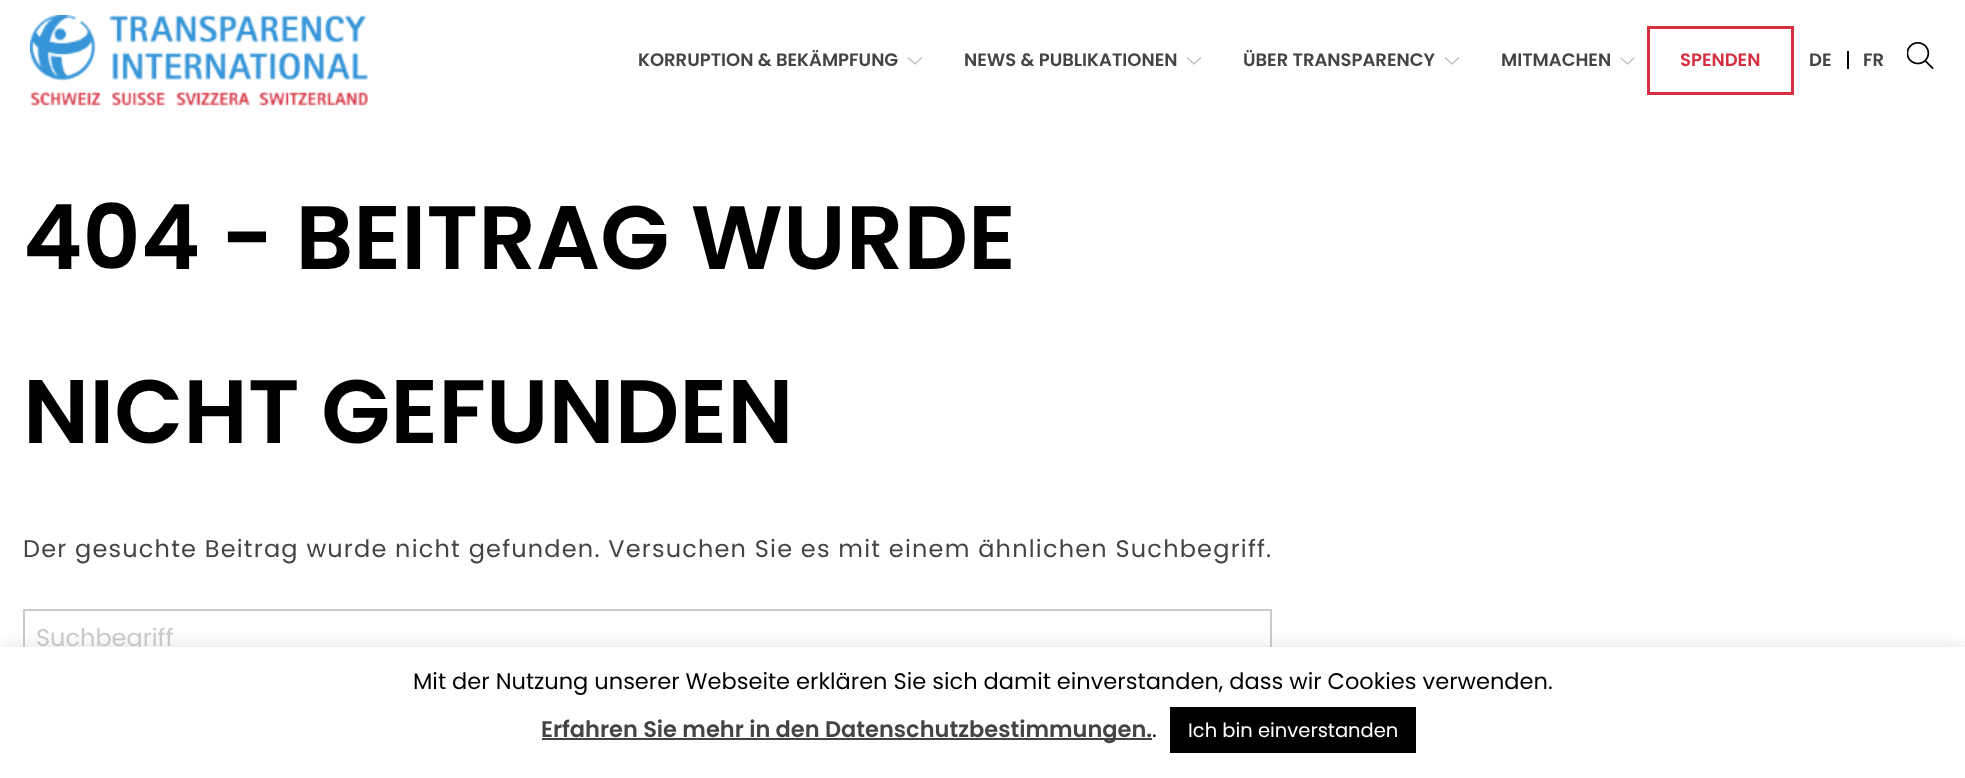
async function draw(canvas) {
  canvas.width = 1965
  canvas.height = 778
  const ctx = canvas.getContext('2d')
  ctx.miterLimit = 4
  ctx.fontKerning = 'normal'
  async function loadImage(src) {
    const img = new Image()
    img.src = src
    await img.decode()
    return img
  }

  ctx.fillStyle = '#fff'
  ctx.fillRect(0, 0, 1965, 778)
  ctx.drawImage(await loadImage('image0.png'), 30, 15, 338, 91)
  ctx.font = '600 18px Poppins'
  ctx.fillStyle = '#444'
  ctx.fillText('KORRUPTION & BEKÄMPFUNG', 638, 66)
  ctx.drawImage(await loadImage('image1.png'), 908, 57, 14, 8)
  ctx.fillText('NEWS & PUBLIKATIONEN', 964, 66)
  ctx.drawImage(await loadImage('image1.png'), 1187, 57, 14, 8)
  ctx.fillText('ÜBER TRANSPARENCY', 1243, 66)
  ctx.drawImage(await loadImage('image1.png'), 1445, 57, 14, 8)
  ctx.fillText('MITMACHEN', 1501, 66)
  ctx.drawImage(await loadImage('image2.png'), 1620, 57, 15, 8)
  ctx.strokeStyle = '#d52f40'
  ctx.lineWidth = 3
  ctx.strokeRect(1648.5, 27.5, 144, 66)
  ctx.fillStyle = '#d52f40'
  ctx.fillText('SPENDEN', 1680, 66)
  ctx.fillStyle = '#444'
  ctx.fillText('DE', 1809, 66)
  ctx.fillStyle = '#000'
  ctx.fillRect(1847, 51, 2, 18)
  ctx.fillStyle = '#444'
  ctx.fillText('FR', 1863, 66)
  ctx.drawImage(await loadImage('image3.png'), 1907, 42, 27, 27)
  ctx.font = '600 90px Poppins'
  ctx.fillStyle = '#000'
  ctx.fillText('404 - BEITRAG WURDE', 23, 269)
  ctx.fillText('NICHT GEFUNDEN', 23, 443)
  ctx.letterSpacing = '1.2px'
  ctx.font = '24px Poppins'
  ctx.fillStyle = '#444'
  ctx.fillText('Der gesuchte Beitrag wurde nicht gefunden. Versuchen Sie es mit einem ähnlichen Suchbegriff.', 23, 557)
  ctx.strokeStyle = '#cacaca'
  ctx.lineWidth = 2
  ctx.strokeRect(24, 610, 1247, 57)
  ctx.letterSpacing = '0px'
  ctx.fillStyle = '#cacaca'
  ctx.fillText('Suchbegriff', 36, 646)
  ctx.fillStyle = '#acabab4d'
  ctx.filter = 'blur(7.5px)'
  ctx.beginPath()
  ctx.rect(0, 645, 1965, 132)
  ctx.fill()
  ctx.filter = 'none'
  ctx.fillStyle = '#fff'
  ctx.fillRect(0, 647, 1965, 131)
  ctx.font = '22.5px Poppins'
  ctx.fillStyle = '#000'
  ctx.fillText('Mit der Nutzung unserer Webseite erklären Sie sich damit einverstanden, dass wir Cookies verwenden.', 413, 689)
  ctx.fillStyle = '#444'
  ctx.fillRect(542, 738, 610, 2)
  ctx.font = '600 22.5px Poppins'
  ctx.fillText('Erfahren Sie mehr in den Datenschutzbestimmungen.', 541, 737)
  ctx.font = '22.5px Poppins'
  ctx.fillStyle = '#000'
  ctx.fillText('.', 1152, 737)
  ctx.fillRect(1170, 707, 246, 46)
  ctx.font = '19.5px Poppins'
  ctx.fillStyle = '#fff'
  ctx.fillText('Ich bin einverstanden', 1188, 737)
}

draw(document.querySelector('canvas'))
